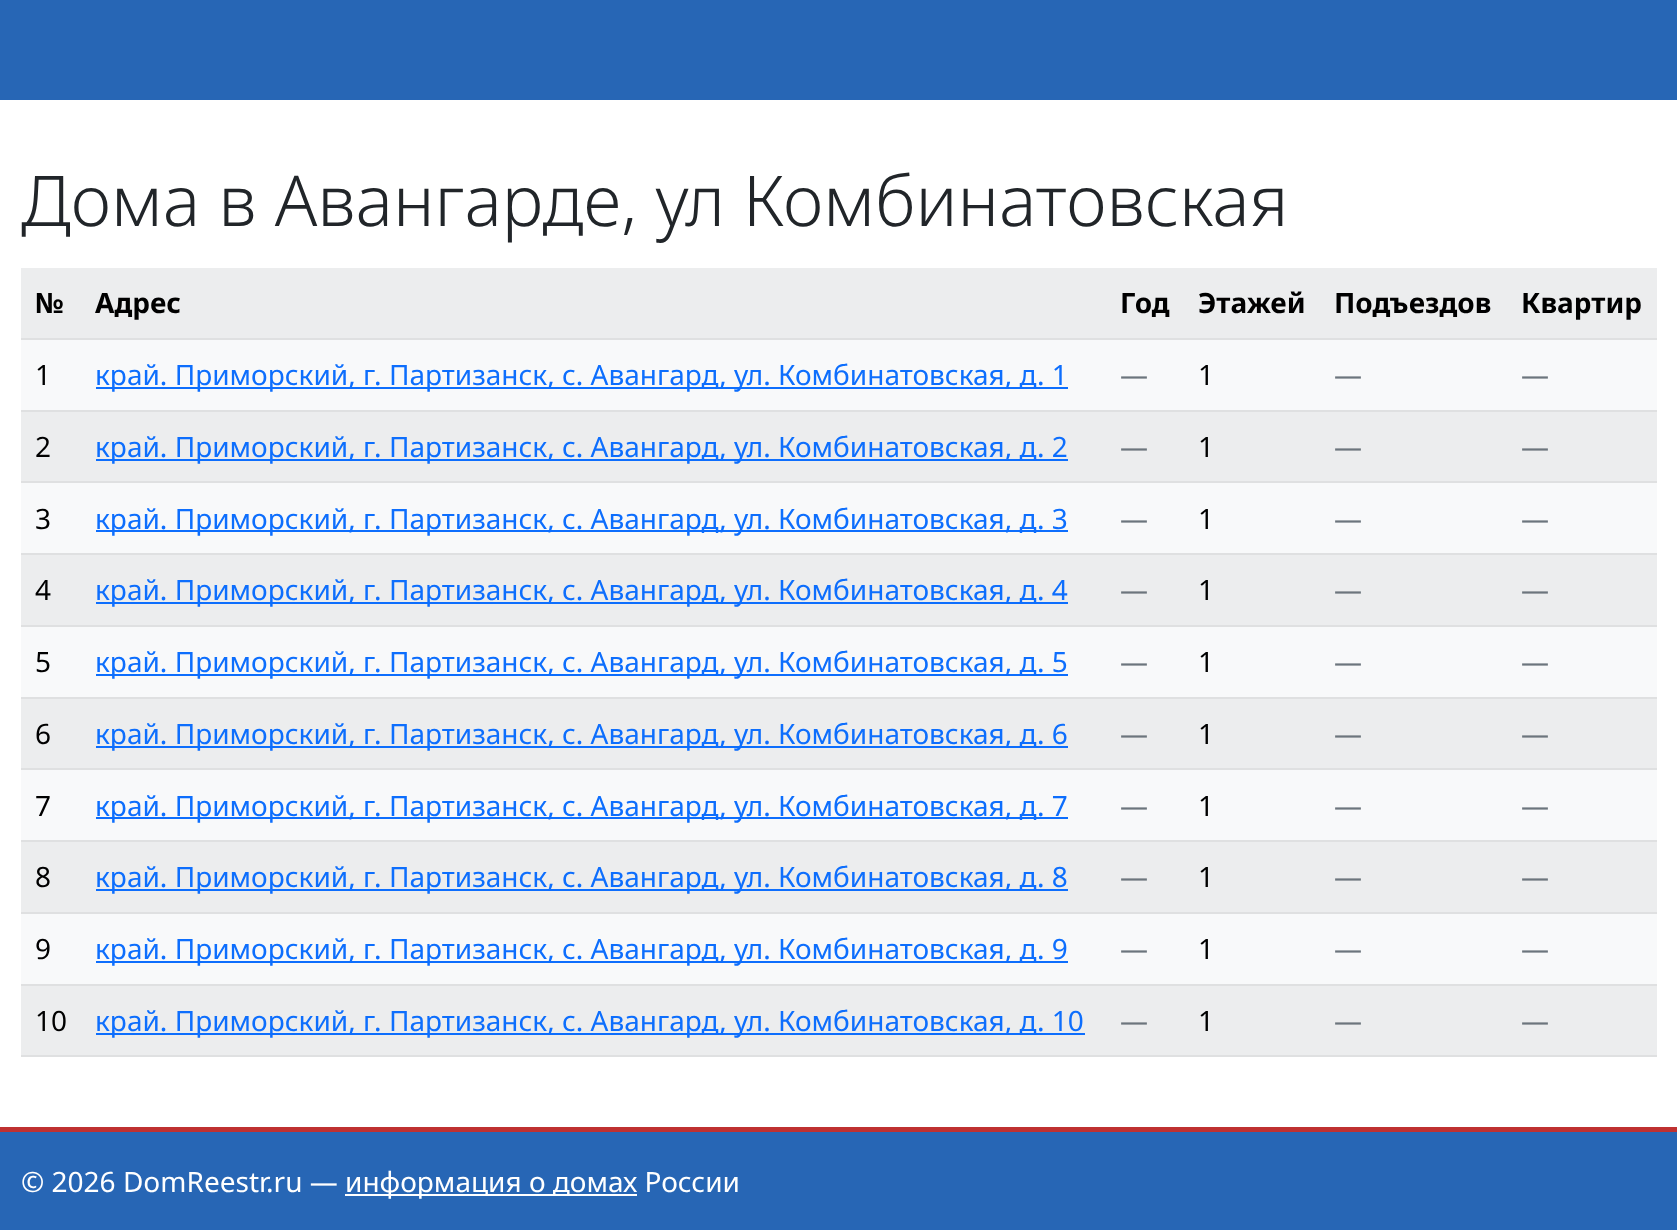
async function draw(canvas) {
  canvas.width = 1677
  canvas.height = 1230
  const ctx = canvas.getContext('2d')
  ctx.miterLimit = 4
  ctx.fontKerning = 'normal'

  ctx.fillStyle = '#fff'
  ctx.fillRect(0, 0, 1677, 1230)
  ctx.fillStyle = '#2766b5'
  ctx.fillRect(0, 0, 1677, 100)
  ctx.font = '300 70px Noto Sans'
  ctx.fillStyle = '#212529'
  ctx.fillText('Дома в Авангарде, ул Комбинатовская', 21, 226)
  ctx.fillStyle = '#ecedee'
  ctx.fillRect(21, 268, 1636, 70)
  ctx.font = 'bold 28px Noto Sans'
  ctx.fillStyle = '#000'
  ctx.fillText('№', 35, 313)
  ctx.fillText('Адрес', 95, 313)
  ctx.fillText('Год', 1120, 313)
  ctx.fillText('Этажей', 1198, 313)
  ctx.fillText('Подъездов', 1334, 313)
  ctx.fillStyle = '#dfe0e1'
  ctx.fillRect(21, 338, 1636, 2)
  ctx.fillStyle = '#000'
  ctx.fillText('Квартир', 1521, 313)
  ctx.fillStyle = '#f8f9fa'
  ctx.fillRect(21, 340, 1636, 70)
  ctx.font = '28px Noto Sans'
  ctx.fillStyle = '#000'
  ctx.fillText('1', 35, 385)
  ctx.fillStyle = '#0d6efd'
  ctx.fillRect(96, 387, 972, 2)
  ctx.fillText('край. Приморский, г. Партизанск, с. Авангард, ул. Комбинатовская, д. 1', 95, 385)
  ctx.fillStyle = '#6c757d'
  ctx.fillText('—', 1120, 385)
  ctx.fillStyle = '#000'
  ctx.fillText('1', 1198, 385)
  ctx.fillStyle = '#6c757d'
  ctx.fillText('—', 1334, 385)
  ctx.fillStyle = '#dfe0e1'
  ctx.fillRect(21, 410, 1636, 2)
  ctx.fillStyle = '#6c757d'
  ctx.fillText('—', 1521, 385)
  ctx.fillStyle = '#ecedee'
  ctx.fillRect(21, 412, 1636, 69)
  ctx.fillStyle = '#000'
  ctx.fillText('2', 35, 457)
  ctx.fillStyle = '#0d6efd'
  ctx.fillRect(96, 459, 972, 2)
  ctx.fillText('край. Приморский, г. Партизанск, с. Авангард, ул. Комбинатовская, д. 2', 95, 457)
  ctx.fillStyle = '#6c757d'
  ctx.fillText('—', 1120, 457)
  ctx.fillStyle = '#000'
  ctx.fillText('1', 1198, 457)
  ctx.fillStyle = '#6c757d'
  ctx.fillText('—', 1334, 457)
  ctx.fillStyle = '#dfe0e1'
  ctx.fillRect(21, 481, 1636, 2)
  ctx.fillStyle = '#6c757d'
  ctx.fillText('—', 1521, 457)
  ctx.fillStyle = '#f8f9fa'
  ctx.fillRect(21, 483, 1636, 70)
  ctx.fillStyle = '#000'
  ctx.fillText('3', 35, 529)
  ctx.fillStyle = '#0d6efd'
  ctx.fillRect(96, 530, 972, 2)
  ctx.fillText('край. Приморский, г. Партизанск, с. Авангард, ул. Комбинатовская, д. 3', 95, 529)
  ctx.fillStyle = '#6c757d'
  ctx.fillText('—', 1120, 529)
  ctx.fillStyle = '#000'
  ctx.fillText('1', 1198, 529)
  ctx.fillStyle = '#6c757d'
  ctx.fillText('—', 1334, 529)
  ctx.fillStyle = '#dfe0e1'
  ctx.fillRect(21, 553, 1636, 2)
  ctx.fillStyle = '#6c757d'
  ctx.fillText('—', 1521, 529)
  ctx.fillStyle = '#ecedee'
  ctx.fillRect(21, 555, 1636, 70)
  ctx.fillStyle = '#000'
  ctx.fillText('4', 35, 600)
  ctx.fillStyle = '#0d6efd'
  ctx.fillRect(96, 602, 972, 2)
  ctx.fillText('край. Приморский, г. Партизанск, с. Авангард, ул. Комбинатовская, д. 4', 95, 600)
  ctx.fillStyle = '#6c757d'
  ctx.fillText('—', 1120, 600)
  ctx.fillStyle = '#000'
  ctx.fillText('1', 1198, 600)
  ctx.fillStyle = '#6c757d'
  ctx.fillText('—', 1334, 600)
  ctx.fillStyle = '#dfe0e1'
  ctx.fillRect(21, 625, 1636, 2)
  ctx.fillStyle = '#6c757d'
  ctx.fillText('—', 1521, 600)
  ctx.fillStyle = '#f8f9fa'
  ctx.fillRect(21, 627, 1636, 70)
  ctx.fillStyle = '#000'
  ctx.fillText('5', 35, 672)
  ctx.fillStyle = '#0d6efd'
  ctx.fillRect(96, 674, 972, 2)
  ctx.fillText('край. Приморский, г. Партизанск, с. Авангард, ул. Комбинатовская, д. 5', 95, 672)
  ctx.fillStyle = '#6c757d'
  ctx.fillText('—', 1120, 672)
  ctx.fillStyle = '#000'
  ctx.fillText('1', 1198, 672)
  ctx.fillStyle = '#6c757d'
  ctx.fillText('—', 1334, 672)
  ctx.fillStyle = '#dfe0e1'
  ctx.fillRect(21, 697, 1636, 2)
  ctx.fillStyle = '#6c757d'
  ctx.fillText('—', 1521, 672)
  ctx.fillStyle = '#ecedee'
  ctx.fillRect(21, 699, 1636, 69)
  ctx.fillStyle = '#000'
  ctx.fillText('6', 35, 744)
  ctx.fillStyle = '#0d6efd'
  ctx.fillRect(96, 746, 972, 2)
  ctx.fillText('край. Приморский, г. Партизанск, с. Авангард, ул. Комбинатовская, д. 6', 95, 744)
  ctx.fillStyle = '#6c757d'
  ctx.fillText('—', 1120, 744)
  ctx.fillStyle = '#000'
  ctx.fillText('1', 1198, 744)
  ctx.fillStyle = '#6c757d'
  ctx.fillText('—', 1334, 744)
  ctx.fillStyle = '#dfe0e1'
  ctx.fillRect(21, 768, 1636, 2)
  ctx.fillStyle = '#6c757d'
  ctx.fillText('—', 1521, 744)
  ctx.fillStyle = '#f8f9fa'
  ctx.fillRect(21, 770, 1636, 70)
  ctx.fillStyle = '#000'
  ctx.fillText('7', 35, 816)
  ctx.fillStyle = '#0d6efd'
  ctx.fillRect(96, 817, 972, 2)
  ctx.fillText('край. Приморский, г. Партизанск, с. Авангард, ул. Комбинатовская, д. 7', 95, 816)
  ctx.fillStyle = '#6c757d'
  ctx.fillText('—', 1120, 816)
  ctx.fillStyle = '#000'
  ctx.fillText('1', 1198, 816)
  ctx.fillStyle = '#6c757d'
  ctx.fillText('—', 1334, 816)
  ctx.fillStyle = '#dfe0e1'
  ctx.fillRect(21, 840, 1636, 2)
  ctx.fillStyle = '#6c757d'
  ctx.fillText('—', 1521, 816)
  ctx.fillStyle = '#ecedee'
  ctx.fillRect(21, 842, 1636, 70)
  ctx.fillStyle = '#000'
  ctx.fillText('8', 35, 887)
  ctx.fillStyle = '#0d6efd'
  ctx.fillRect(96, 889, 972, 2)
  ctx.fillText('край. Приморский, г. Партизанск, с. Авангард, ул. Комбинатовская, д. 8', 95, 887)
  ctx.fillStyle = '#6c757d'
  ctx.fillText('—', 1120, 887)
  ctx.fillStyle = '#000'
  ctx.fillText('1', 1198, 887)
  ctx.fillStyle = '#6c757d'
  ctx.fillText('—', 1334, 887)
  ctx.fillStyle = '#dfe0e1'
  ctx.fillRect(21, 912, 1636, 2)
  ctx.fillStyle = '#6c757d'
  ctx.fillText('—', 1521, 887)
  ctx.fillStyle = '#f8f9fa'
  ctx.fillRect(21, 914, 1636, 70)
  ctx.fillStyle = '#000'
  ctx.fillText('9', 35, 959)
  ctx.fillStyle = '#0d6efd'
  ctx.fillRect(96, 961, 972, 2)
  ctx.fillText('край. Приморский, г. Партизанск, с. Авангард, ул. Комбинатовская, д. 9', 95, 959)
  ctx.fillStyle = '#6c757d'
  ctx.fillText('—', 1120, 959)
  ctx.fillStyle = '#000'
  ctx.fillText('1', 1198, 959)
  ctx.fillStyle = '#6c757d'
  ctx.fillText('—', 1334, 959)
  ctx.fillStyle = '#dfe0e1'
  ctx.fillRect(21, 984, 1636, 2)
  ctx.fillStyle = '#6c757d'
  ctx.fillText('—', 1521, 959)
  ctx.fillStyle = '#ecedee'
  ctx.fillRect(21, 986, 1636, 69)
  ctx.fillStyle = '#000'
  ctx.fillText('10', 35, 1031)
  ctx.fillStyle = '#0d6efd'
  ctx.fillRect(96, 1033, 989, 2)
  ctx.fillText('край. Приморский, г. Партизанск, с. Авангард, ул. Комбинатовская, д. 10', 95, 1031)
  ctx.fillStyle = '#6c757d'
  ctx.fillText('—', 1120, 1031)
  ctx.fillStyle = '#000'
  ctx.fillText('1', 1198, 1031)
  ctx.fillStyle = '#6c757d'
  ctx.fillText('—', 1334, 1031)
  ctx.fillStyle = '#dfe0e1'
  ctx.fillRect(21, 1055, 1636, 2)
  ctx.fillStyle = '#6c757d'
  ctx.fillText('—', 1521, 1031)
  ctx.fillStyle = '#2766b5'
  ctx.fillRect(0, 1132, 1677, 98)
  ctx.fillStyle = '#bf3131'
  ctx.fillRect(0, 1127, 1677, 5)
  ctx.fillStyle = '#fff'
  ctx.fillText('© 2026 DomReestr.ru —', 21, 1192)
  ctx.fillRect(345, 1194, 292, 2)
  ctx.fillText('информация о домах России', 345, 1192)
}

draw(document.querySelector('canvas'))
